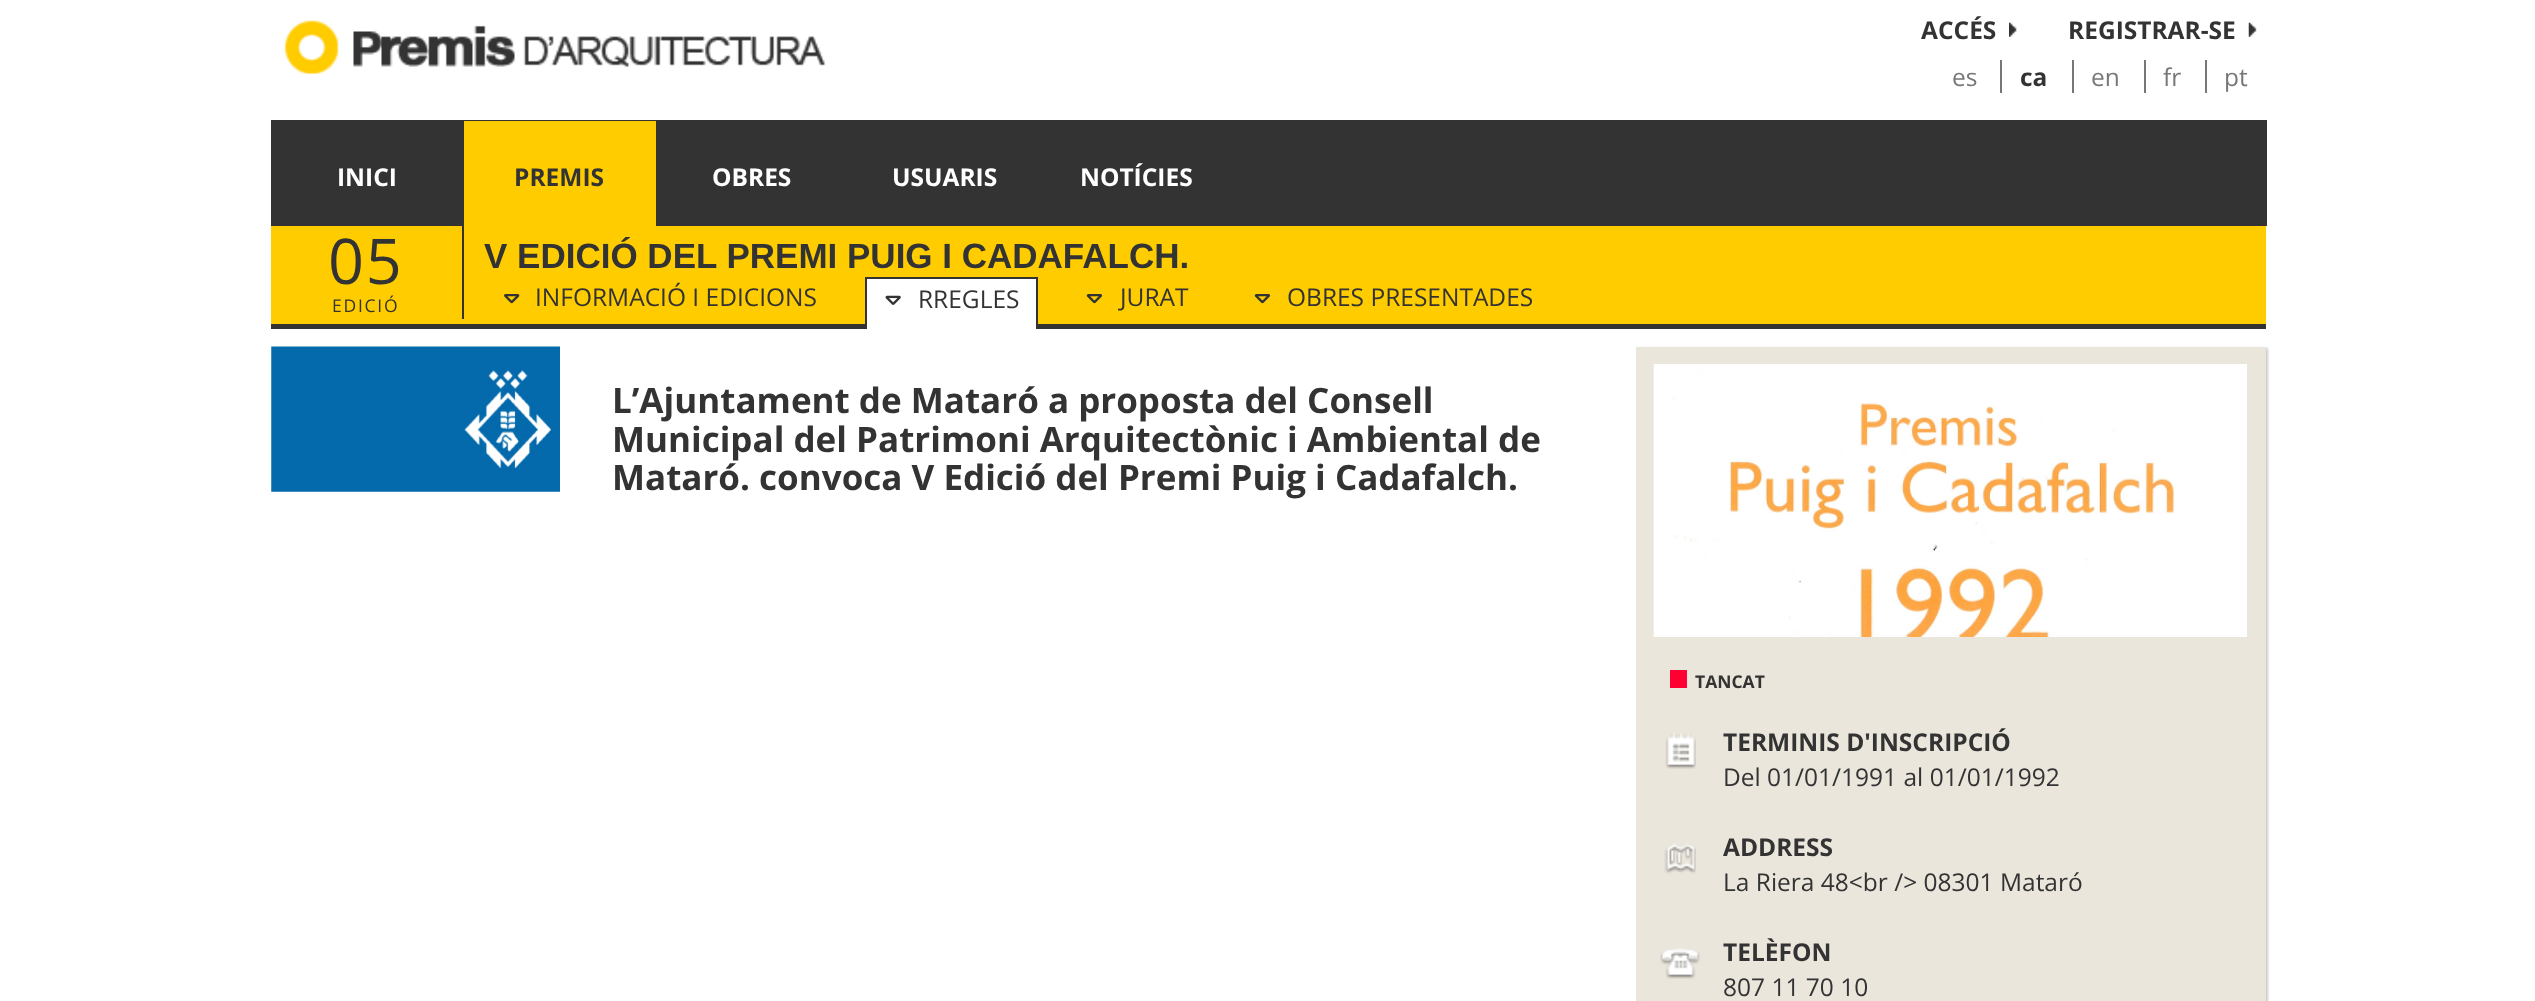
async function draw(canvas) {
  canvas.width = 2535
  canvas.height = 1001
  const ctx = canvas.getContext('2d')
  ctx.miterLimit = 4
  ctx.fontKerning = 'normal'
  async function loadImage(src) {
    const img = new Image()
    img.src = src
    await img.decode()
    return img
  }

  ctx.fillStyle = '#fff'
  ctx.fillRect(0, 0, 2535, 1001)
  ctx.drawImage(await loadImage('image0.png'), 284, 20, 542, 54)
  ctx.drawImage(await loadImage('image1.png'), 2009, 22, 8, 15)
  ctx.font = 'bold 24.5px Open Sans'
  ctx.fillStyle = '#333'
  ctx.fillText('ACCÉS', 1921, 39)
  ctx.drawImage(await loadImage('image2.png'), 2248, 22, 9, 15)
  ctx.fillText('REGISTRAR-SE', 2068, 39)
  ctx.font = '24.5px Open Sans'
  ctx.fillStyle = '#777'
  ctx.fillText('es', 1952, 86)
  ctx.font = 'bold 24.5px Open Sans'
  ctx.fillStyle = '#333'
  ctx.fillText('ca', 2020, 86)
  ctx.fillStyle = '#777'
  ctx.fillRect(2000, 60, 2, 33)
  ctx.font = '24.5px Open Sans'
  ctx.fillText('en', 2091, 86)
  ctx.fillRect(2072, 60, 2, 33)
  ctx.fillText('fr', 2163, 86)
  ctx.fillRect(2144, 60, 2, 33)
  ctx.fillText('pt', 2224, 86)
  ctx.fillRect(2205, 60, 2, 33)
  ctx.fillStyle = '#333'
  ctx.fillRect(271, 120, 1996, 106)
  ctx.font = 'bold 24.5px Open Sans'
  ctx.fillStyle = '#fff'
  ctx.fillText('INICI', 337, 186)
  ctx.fillStyle = '#fc0'
  ctx.fillRect(464, 121, 192, 105)
  ctx.fillStyle = '#333'
  ctx.fillText('PREMIS', 514, 186)
  ctx.fillStyle = '#fff'
  ctx.fillText('OBRES', 712, 186)
  ctx.fillText('USUARIS', 892, 186)
  ctx.fillText('NOTÍCIES', 1080, 186)
  ctx.fillStyle = '#fc0'
  ctx.fillRect(271, 226, 1995, 98)
  ctx.fillStyle = '#333'
  ctx.fillRect(271, 324, 1995, 5)
  ctx.fillRect(462, 226, 2, 93)
  ctx.letterSpacing = '1.75px'
  ctx.font = '63px Open Sans'
  ctx.fillText('05', 328, 284)
  ctx.font = '17.5px Open Sans'
  ctx.fillText('EDICIÓ', 332, 312)
  ctx.letterSpacing = '0px'
  ctx.font = 'bold 35px Liberation Sans'
  ctx.fillText('V EDICIÓ DEL PREMI PUIG I CADAFALCH.', 484, 268)
  ctx.drawImage(await loadImage('image3.png'), 504, 294, 16, 10)
  ctx.font = '24.5px Open Sans'
  ctx.fillText('INFORMACIÓ I EDICIONS', 535, 306)
  ctx.fillStyle = '#fff'
  ctx.fillRect(867, 279, 169, 50)
  ctx.fillStyle = '#333'
  ctx.fillRect(865, 277, 173, 2)
  ctx.fillRect(1036, 277, 2, 52)
  ctx.fillRect(865, 277, 2, 52)
  ctx.drawImage(await loadImage('image4.png'), 885, 295, 16, 10)
  ctx.fillText('RREGLES', 918, 308)
  ctx.drawImage(await loadImage('image5.png'), 1086, 294, 16, 10)
  ctx.fillText('JURAT', 1120, 306)
  ctx.drawImage(await loadImage('image5.png'), 1254, 294, 16, 10)
  ctx.fillText('OBRES PRESENTADES', 1287, 306)
  ctx.drawImage(await loadImage('image6.png'), 271, 346, 289, 146)
  ctx.font = 'bold 35px Open Sans'
  ctx.fillText('L’Ajuntament de Mataró a proposta del Consell', 612, 413)
  ctx.fillText('Municipal del Patrimoni Arquitectònic i Ambiental de', 612, 452)
  ctx.fillText('Mataró. convoca V Edició del Premi Puig i Cadafalch.', 612, 490)
  ctx.fillStyle = '#ccc'
  ctx.filter = 'blur(1px)'
  ctx.beginPath()
  ctx.rect(1638, 348, 630, 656)
  ctx.fill()
  ctx.filter = 'none'
  ctx.fillStyle = '#ebe6dc'
  ctx.fillRect(1636, 347, 630, 654)
  ctx.drawImage(await loadImage('image7.png'), 1653, 364, 594, 273)
  ctx.fillStyle = '#f03'
  ctx.fillRect(1670, 670, 17, 18)
  ctx.font = 'bold 17.5px Open Sans'
  ctx.fillStyle = '#333'
  ctx.fillText('TANCAT', 1695, 688)
  ctx.drawImage(await loadImage('image8.png'), 1665, 733, 31, 36)
  ctx.font = 'bold 24.5px Open Sans'
  ctx.fillText('TERMINIS D\'INSCRIPCIÓ', 1723, 751)
  ctx.font = '24.5px Open Sans'
  ctx.fillText('Del 01/01/1991 al 01/01/1992', 1723, 786)
  ctx.drawImage(await loadImage('image9.png'), 1664, 843, 32, 31)
  ctx.font = 'bold 24.5px Open Sans'
  ctx.fillText('ADDRESS', 1723, 856)
  ctx.font = '24.5px Open Sans'
  ctx.fillText('La Riera 48<br /> 08301 Mataró', 1723, 891)
  ctx.drawImage(await loadImage('image10.png'), 1660, 948, 40, 31)
  ctx.font = 'bold 24.5px Open Sans'
  ctx.fillText('TELÈFON', 1723, 961)
  ctx.font = '24.5px Open Sans'
  ctx.fillText('807 11 70 10', 1723, 996)
}

draw(document.querySelector('canvas'))
